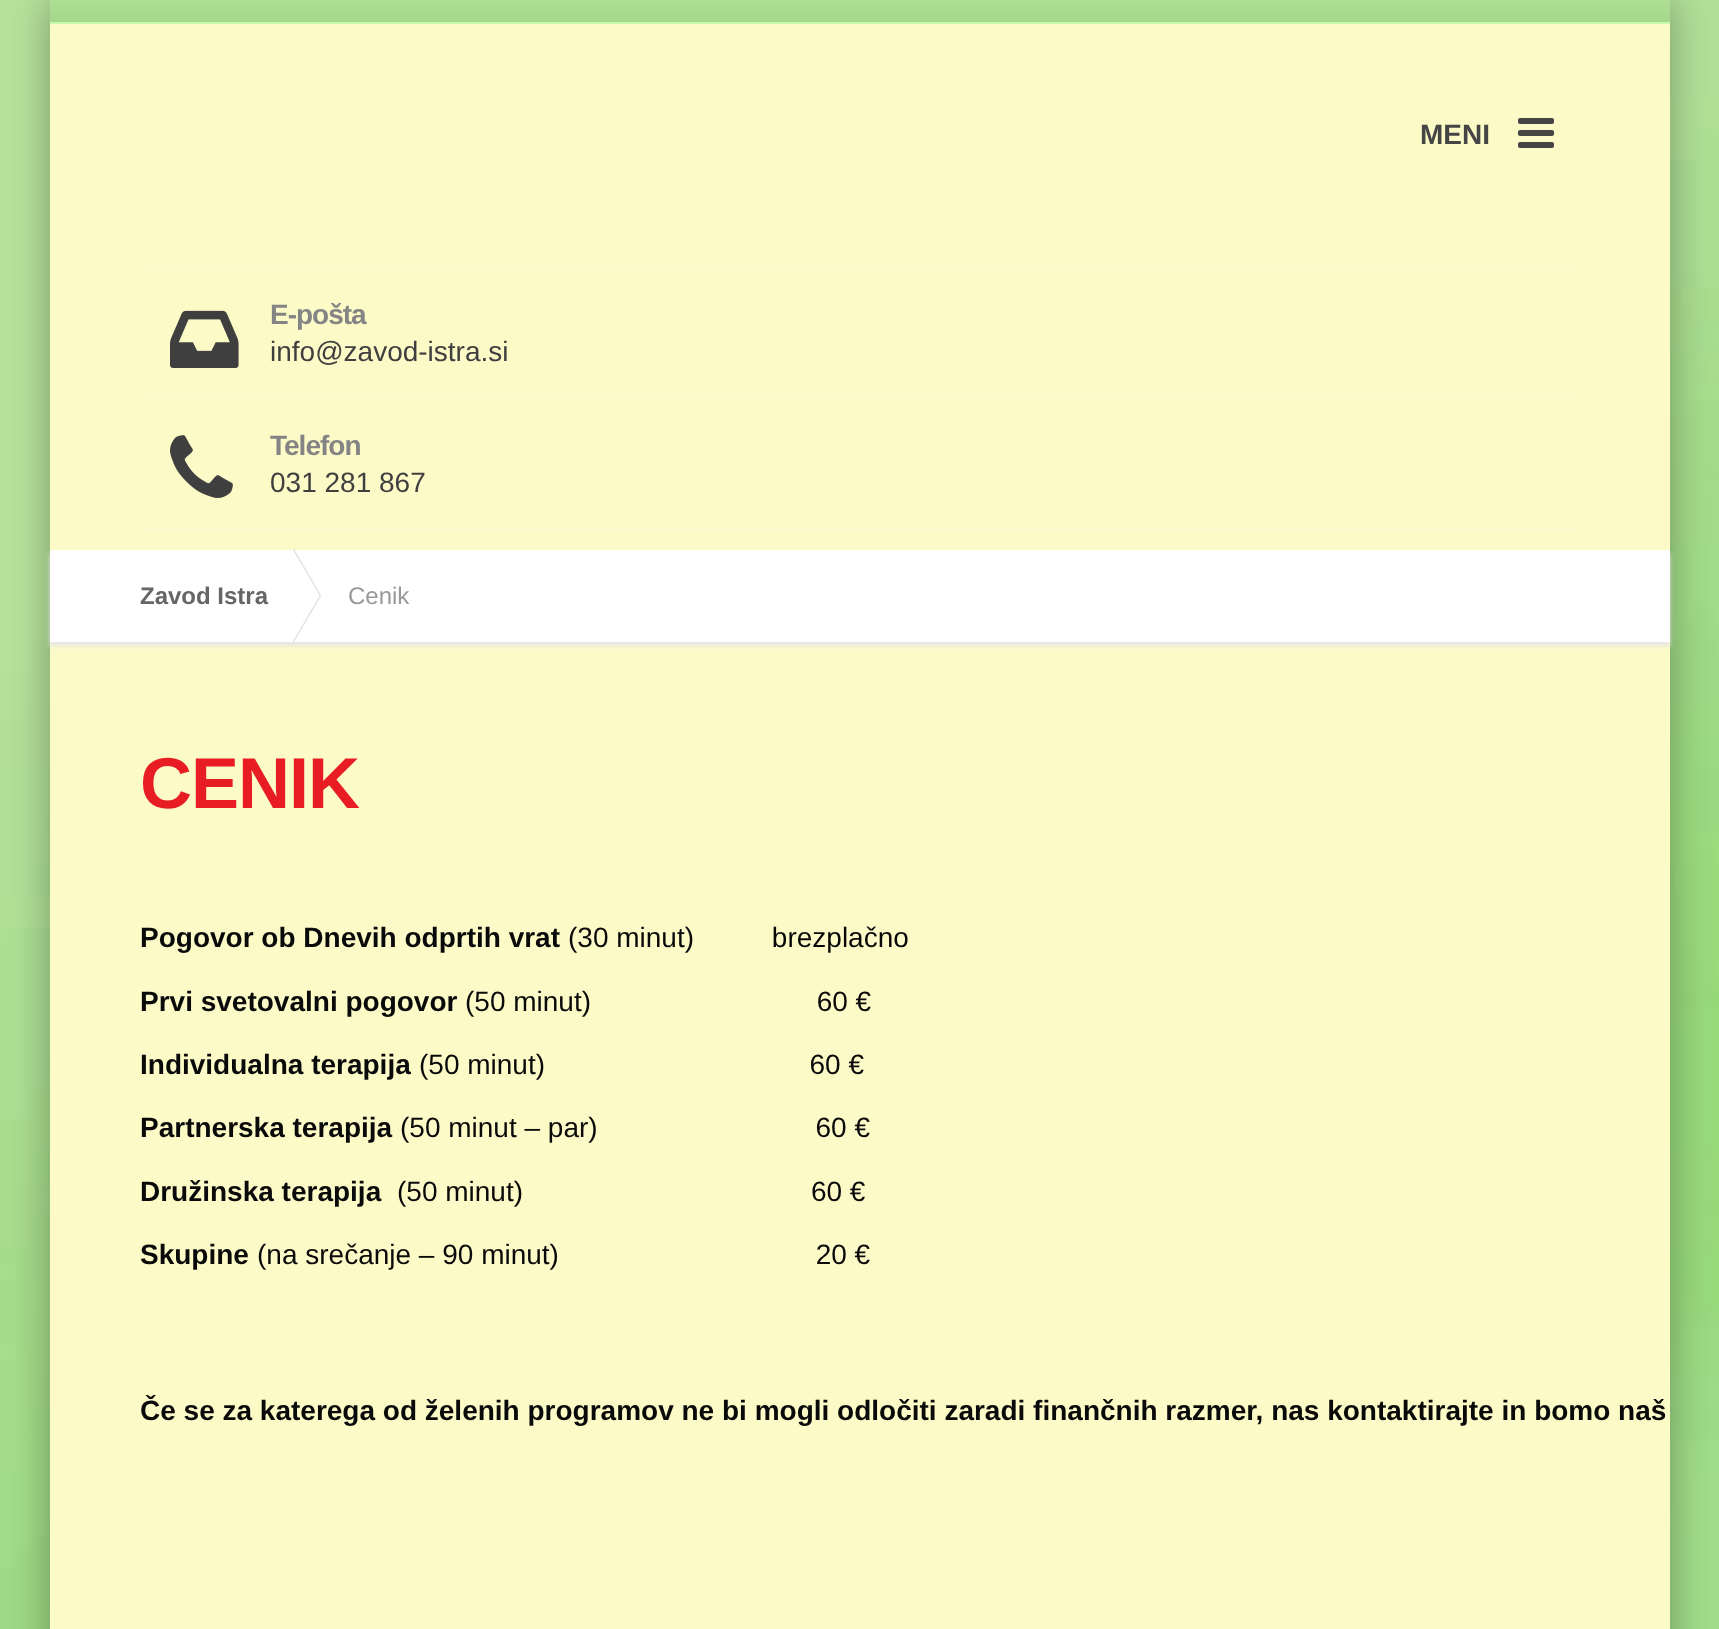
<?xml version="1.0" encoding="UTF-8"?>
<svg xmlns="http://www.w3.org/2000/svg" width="1719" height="1629">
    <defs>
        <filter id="blur1" x="-50%" y="-200%" width="200%" height="500%"><feGaussianBlur stdDeviation="20"/></filter>
        <linearGradient id="g1" gradientUnits="userSpaceOnUse" x1="860" y1="0" x2="860" y2="22"><stop offset="0" stop-color="#ACDF94"/><stop offset="1" stop-color="#A4D78C"/></linearGradient>
        <filter id="blur2" x="-50%" y="-200%" width="200%" height="500%"><feGaussianBlur stdDeviation="2"/></filter>
    </defs>
    <rect width="100%" height="100%" fill="#FFFFFF"/>
    <image x="0" y="0" width="1719" height="1629" href="img_01.png"/>
    <rect x="50" y="0" width="1620" height="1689" fill="#000000" fill-opacity="0.33" filter="url(#blur1)"/>
    <rect x="50" y="24" width="1620" height="1605" fill="#FCFAC7"/>
    <rect x="50" y="0" width="1620" height="22" fill="url(#g1)"/>
    <rect x="50" y="22" width="1620" height="2" fill="#C6F9AE"/>
    <text x="1420" y="144" font-family="Liberation Sans" font-size="28" font-weight="700" fill="#454545">MENI</text>
    <rect x="1518" y="118" width="36" height="6" rx="2" fill="#454545"/>
    <rect x="1518" y="130" width="36" height="6" rx="2" fill="#454545"/>
    <rect x="1518" y="142" width="36" height="6" rx="2" fill="#454545"/>
    <rect x="140" y="266" width="1440" height="2" fill="#FCFACD"/>
    <rect x="140" y="396" width="1440" height="2" fill="#FCFACD"/>
    <image x="170" y="310" width="69" height="58" href="img_02.png"/>
    <text x="270" y="324" font-family="Liberation Sans" font-size="28" font-weight="700" letter-spacing="-1" fill="#848484">E-pošta</text>
    <text x="270" y="361" font-family="Liberation Sans" font-size="28" fill="#3F3F3F">info@zavod-istra.si</text>
    <rect x="140" y="528" width="1440" height="2" fill="#FCFACD"/>
    <image x="170" y="435" width="63" height="63" href="img_03.png"/>
    <text x="270" y="455" font-family="Liberation Sans" font-size="28" font-weight="700" letter-spacing="-1" fill="#848484">Telefon</text>
    <text x="270" y="492" font-family="Liberation Sans" font-size="28" fill="#3F3F3F">031 281 867</text>
    <rect x="50" y="554" width="1620" height="92" fill="#E6E6E6" filter="url(#blur2)"/>
    <rect x="50" y="550" width="1620" height="92" fill="#FFFFFF"/>
    <text x="140" y="604" font-family="Liberation Sans" font-size="24" font-weight="700" fill="#666666">Zavod Istra</text>
    <path d="M 293 550 L 294 549 L 321 595 L 320 596 Z" fill="#E2E2E2"/>
    <path d="M 320 595 L 321 596 L 294 642 L 293 641 Z" fill="#E2E2E2"/>
    <text x="348" y="604" font-family="Liberation Sans" font-size="24" fill="#999999">Cenik</text>
    <text x="140" y="808" font-family="Liberation Sans" font-size="72" font-weight="700" letter-spacing="-1" fill="#E71D23">CENIK</text>
    <text x="140" y="947" font-family="Liberation Sans" font-size="28" font-weight="700" fill="#0A0A0A">Pogovor ob Dnevih odprtih vrat</text>
    <text x="568" y="947" font-family="Liberation Sans" font-size="28" fill="#0A0A0A" xml:space="preserve">(30 minut)          brezplačno</text>
    <text x="140" y="1011" font-family="Liberation Sans" font-size="28" font-weight="700" fill="#0A0A0A">Prvi svetovalni pogovor</text>
    <text x="465" y="1011" font-family="Liberation Sans" font-size="28" fill="#0A0A0A" xml:space="preserve">(50 minut)                             60 €</text>
    <text x="140" y="1074" font-family="Liberation Sans" font-size="28" font-weight="700" fill="#0A0A0A">Individualna terapija</text>
    <text x="419" y="1074" font-family="Liberation Sans" font-size="28" fill="#0A0A0A" xml:space="preserve">(50 minut)                                  60 €</text>
    <text x="140" y="1137" font-family="Liberation Sans" font-size="28" font-weight="700" fill="#0A0A0A">Partnerska terapija</text>
    <text x="400" y="1137" font-family="Liberation Sans" font-size="28" fill="#0A0A0A" xml:space="preserve">(50 minut – par)                            60 €</text>
    <text x="140" y="1201" font-family="Liberation Sans" font-size="28" font-weight="700" fill="#0A0A0A">Družinska terapija</text>
    <text x="397" y="1201" font-family="Liberation Sans" font-size="28" fill="#0A0A0A" xml:space="preserve">(50 minut)                                     60 €</text>
    <text x="140" y="1264" font-family="Liberation Sans" font-size="28" font-weight="700" fill="#0A0A0A">Skupine</text>
    <text x="257" y="1264" font-family="Liberation Sans" font-size="28" fill="#0A0A0A" xml:space="preserve">(na srečanje – 90 minut)                                 20 €</text>
    <text x="140" y="1420" font-family="Liberation Sans" font-size="28" font-weight="700" fill="#0A0A0A">Če se za katerega od želenih programov ne bi mogli odločiti zaradi finančnih razmer, nas kontaktirajte in bomo naš</text>
</svg>
